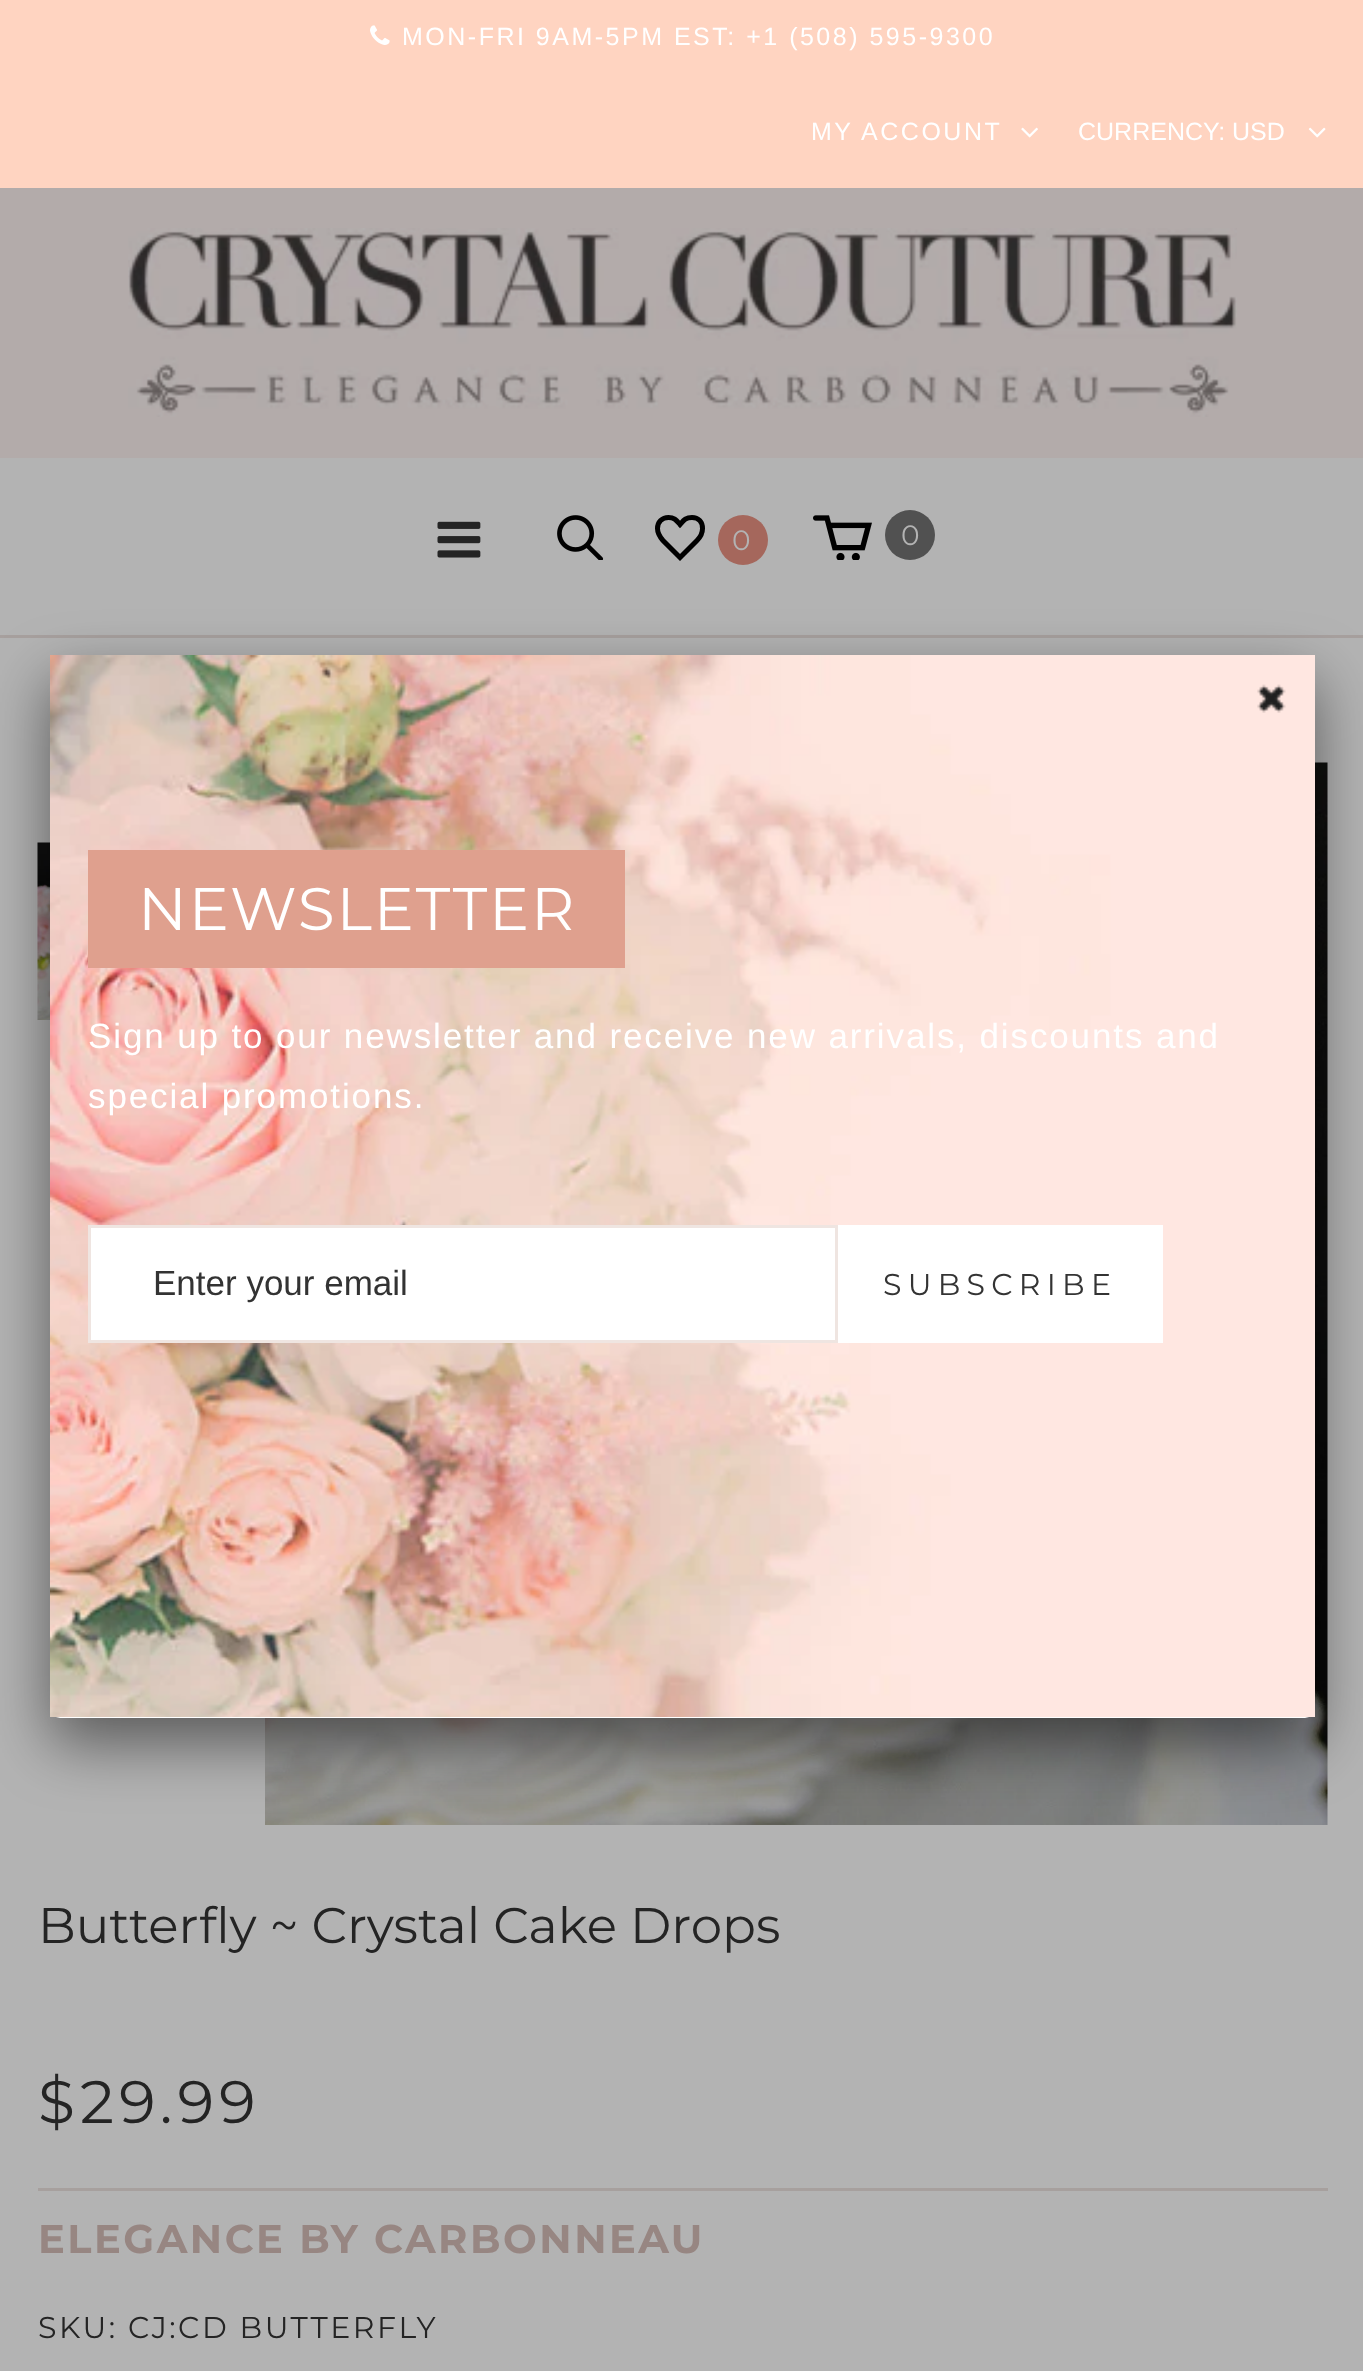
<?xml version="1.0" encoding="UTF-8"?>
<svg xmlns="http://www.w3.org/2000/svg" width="1363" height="2371">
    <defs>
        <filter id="blur1" x="-50%" y="-200%" width="200%" height="500%"><feGaussianBlur stdDeviation="31"/></filter>
    </defs>
    <rect width="100%" height="100%" fill="#B3B3B3"/>
    <rect x="0" y="0" width="1363" height="188" fill="#FFD4C1"/>
    <image x="370" y="25" width="20" height="20" href="img_01.png"/>
    <text x="402" y="45" font-family="Liberation Sans" font-size="25" letter-spacing="2.5" fill="#FFFFFF">MON-FRI 9AM-5PM EST: +1 (508) 595-9300</text>
    <text x="811" y="140" font-family="Liberation Sans" font-size="25" letter-spacing="2.5" fill="#FFFFFF">MY ACCOUNT</text>
    <image x="1021" y="127" width="17" height="11" href="img_02.png"/>
    <text x="1078" y="140" font-family="Liberation Sans" font-size="25" fill="#FFFFFF">CURRENCY:</text>
    <text x="1232" y="140" font-family="Liberation Sans" font-size="25" fill="#FFFFFF">USD</text>
    <image x="1308" y="127" width="18" height="11" href="img_03.png"/>
    <rect x="0" y="188" width="1363" height="270" fill="#B3ABAA"/>
    <image x="128" y="228" width="1109" height="189" href="img_04.png"/>
    <image x="437" y="521" width="44" height="37" href="img_05.png"/>
    <image x="557" y="515" width="47" height="45" href="img_06.png"/>
    <path d="M 663 540.5 C 659.5 536.5 657.5 532.5 657.5 528.5 C 657.5 522 662 517.5 668.5 517.5 C 674.5 517.5 676.5 520.5 680 524.5 C 683.5 520.5 685.5 517.5 692 517.5 C 698.5 517.5 702.5 522 702.5 528.5 C 702.5 532.5 701 536.5 697 540.5 L 680 557.5 Z" fill="none" stroke="#000000" stroke-width="5"/>
    <circle cx="743" cy="540" r="25" fill="#A5675C"/>
    <text x="732" y="550" font-family="Montserrat" font-size="28" fill="#B3B3B3">0</text>
    <image x="813" y="515" width="59" height="45" href="img_07.png"/>
    <circle cx="910" cy="535" r="25" fill="#515151"/>
    <text x="901" y="545" font-family="Montserrat" font-size="28" fill="#B3B3B3">0</text>
    <rect x="0" y="635" width="1363" height="3" fill="#A7A09E"/>
    <image x="37" y="842" width="13" height="178" href="img_08.png"/>
    <image x="265" y="762" width="1063" height="1063" href="img_09.png"/>
    <text x="38" y="1943" font-family="Montserrat" font-size="50" fill="#242424">Butterfly ~ Crystal Cake Drops</text>
    <text x="38" y="2123" font-family="Montserrat" font-size="60" letter-spacing="5" fill="#242424">$29.99</text>
    <rect x="38" y="2188" width="1290" height="3" fill="#A7A09E"/>
    <text x="38" y="2253" font-family="Montserrat" font-size="40" font-weight="700" letter-spacing="2.5" fill="#978682">ELEGANCE BY CARBONNEAU</text>
    <text x="38" y="2338" font-family="Montserrat" font-size="30" letter-spacing="2.5" fill="#242424">SKU: CJ:CD BUTTERFLY</text>
    <rect x="50" y="680" width="1265" height="1063" rx="10" fill="#000000" fill-opacity="0.5" filter="url(#blur1)"/>
    <rect x="50" y="655" width="1265" height="1063" rx="10" fill="#FFFFFF"/>
    <image x="50" y="655" width="1265" height="1062" href="img_11.png"/>
    <image x="1257" y="684" width="29" height="29" href="img_10.png"/>
    <rect x="88" y="850" width="537" height="118" fill="#DFA08E"/>
    <text x="138" y="930" font-family="Montserrat" font-size="60" letter-spacing="1.88" fill="#FFFFFF">NEWSLETTER</text>
    <text font-family="Liberation Sans" font-size="35" letter-spacing="1.88" fill="#FFFFFF">
        <tspan x="88" y="1048">Sign up to our newsletter and receive new arrivals, discounts and</tspan>
        <tspan x="88" y="1108">special promotions.</tspan>
    </text>
    <rect x="89.5" y="1226.5" width="747" height="115" fill="#FFFFFF" stroke="#EFE5E1" stroke-width="3"/>
    <text x="153" y="1295" font-family="Liberation Sans" font-size="35" fill="#333333">Enter your email</text>
    <rect x="838" y="1225" width="325" height="118" fill="#FFFFFF"/>
    <text x="883" y="1295" font-family="Montserrat" font-size="30" letter-spacing="6.25" fill="#333333">SUBSCRIBE</text>
</svg>
